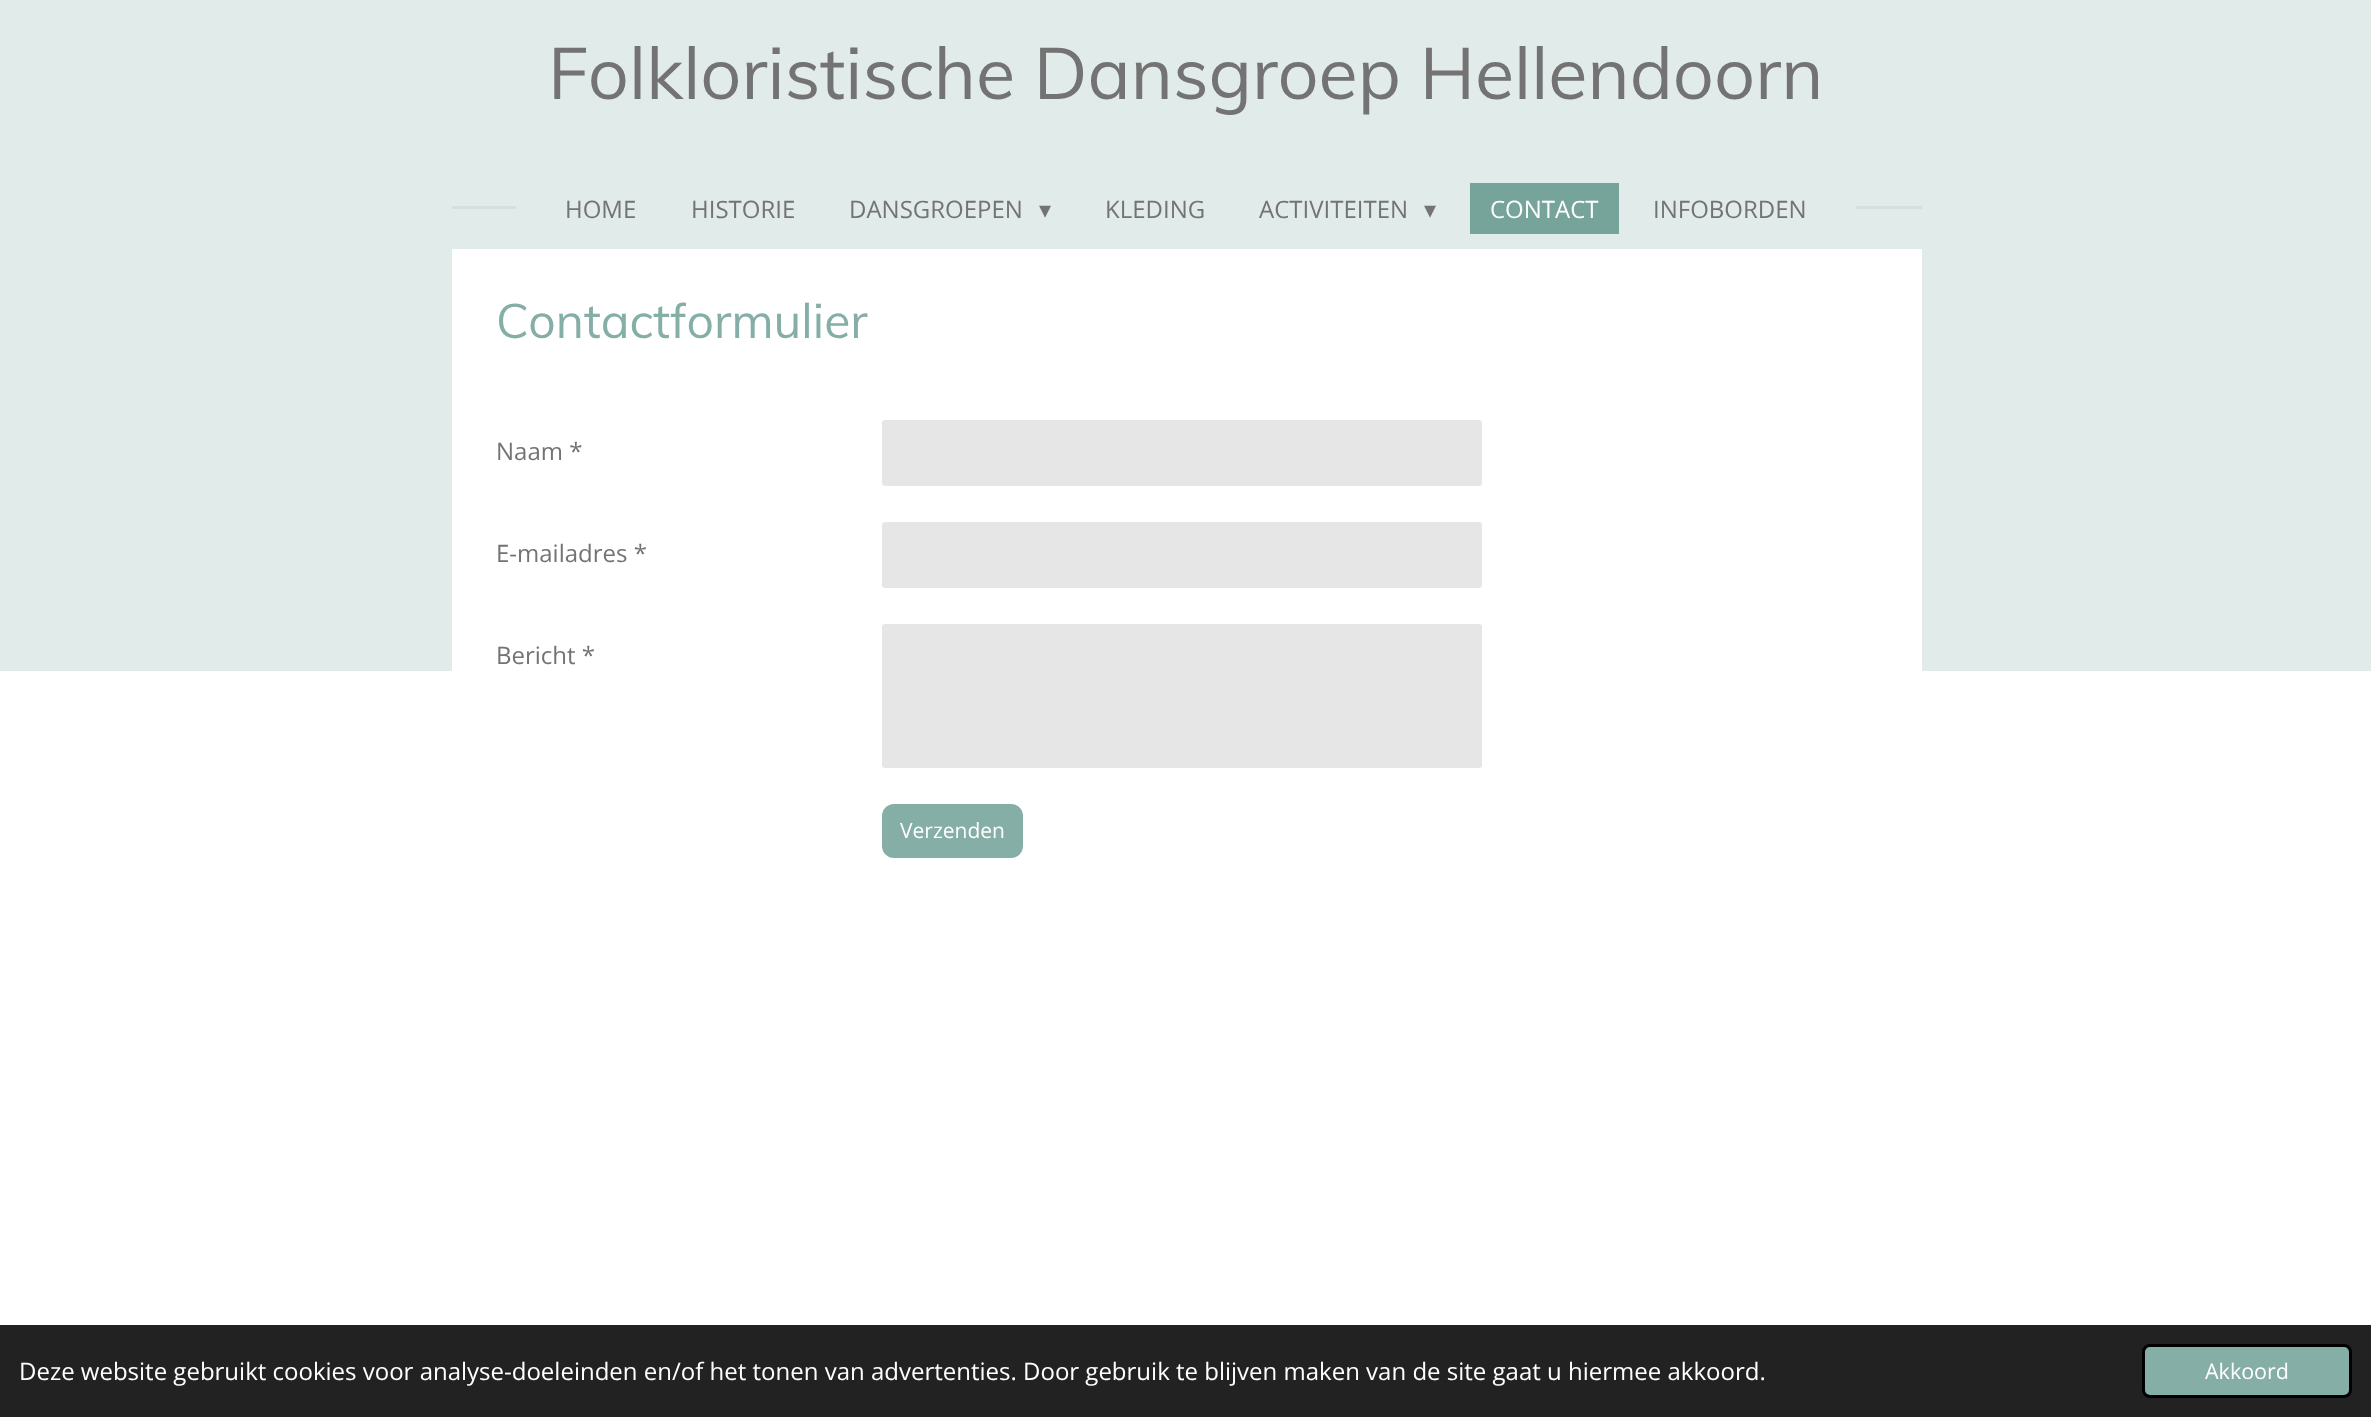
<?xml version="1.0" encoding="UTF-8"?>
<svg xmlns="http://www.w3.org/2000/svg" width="2371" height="1417">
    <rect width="100%" height="100%" fill="#FFFFFF"/>
    <rect x="0" y="0" width="2371" height="671" fill="#E1EBE9"/>
    <text x="548" y="99" font-family="Muli" font-size="72" fill="#737373">Folkloristische Dansgroep Hellendoorn</text>
    <rect x="452" y="206" width="64" height="3" fill="#D2E1DE"/>
    <text x="565" y="218" font-family="Open Sans" font-size="24" fill="#737373">HOME</text>
    <text x="691" y="218" font-family="Open Sans" font-size="24" fill="#737373">HISTORIE</text>
    <text x="849" y="218" font-family="Open Sans" font-size="24" fill="#737373">DANSGROEPEN</text>
    <text x="1039" y="218" font-family="DejaVu Sans" font-size="24" fill="#737373">▾</text>
    <text x="1105" y="218" font-family="Open Sans" font-size="24" fill="#737373">KLEDING</text>
    <text x="1259" y="218" font-family="Open Sans" font-size="24" fill="#737373">ACTIVITEITEN</text>
    <text x="1424" y="218" font-family="DejaVu Sans" font-size="24" fill="#737373">▾</text>
    <rect x="1470" y="183" width="149" height="51" fill="#76A49A"/>
    <text x="1490" y="218" font-family="Open Sans" font-size="24" fill="#FFFFFF">CONTACT</text>
    <text x="1653" y="218" font-family="Open Sans" font-size="24" fill="#737373">INFOBORDEN</text>
    <rect x="1856" y="206" width="66" height="3" fill="#D2E1DE"/>
    <rect x="452" y="249" width="1470" height="422" fill="#FFFFFF"/>
    <text x="496" y="338" font-family="Muli" font-size="48" fill="#85AEA6">Contactformulier</text>
    <text x="496" y="460" font-family="Open Sans" font-size="24" fill="#737373">Naam *</text>
    <rect x="882" y="420" width="600" height="66" rx="3" fill="#E6E6E6"/>
    <text x="496" y="562" font-family="Open Sans" font-size="24" fill="#737373">E-mailadres *</text>
    <rect x="882" y="522" width="600" height="66" rx="3" fill="#E6E6E6"/>
    <text x="496" y="664" font-family="Open Sans" font-size="24" fill="#737373">Bericht *</text>
    <rect x="882" y="624" width="600" height="144" rx="3" fill="#E6E6E6"/>
    <rect x="882" y="804" width="141" height="54" rx="12" fill="#85AEA6"/>
    <text x="900" y="838" font-family="Open Sans" font-size="21" fill="#FFFFFF">Verzenden</text>
    <rect x="0" y="1325" width="2371" height="92" fill="#222222"/>
    <text x="19" y="1380" font-family="Open Sans" font-size="24" fill="#FFFFFF">Deze website gebruikt cookies voor analyse-doeleinden en/of het tonen van advertenties. Door gebruik te blijven maken van de site gaat u hiermee akkoord.</text>
    <rect x="2143.5" y="1345.5" width="207" height="51" rx="6.5" fill="#85AEA6" stroke="#000000" stroke-width="3"/>
    <text x="2205" y="1379" font-family="Open Sans" font-size="21.5" fill="#FFFFFF">Akkoord</text>
</svg>
